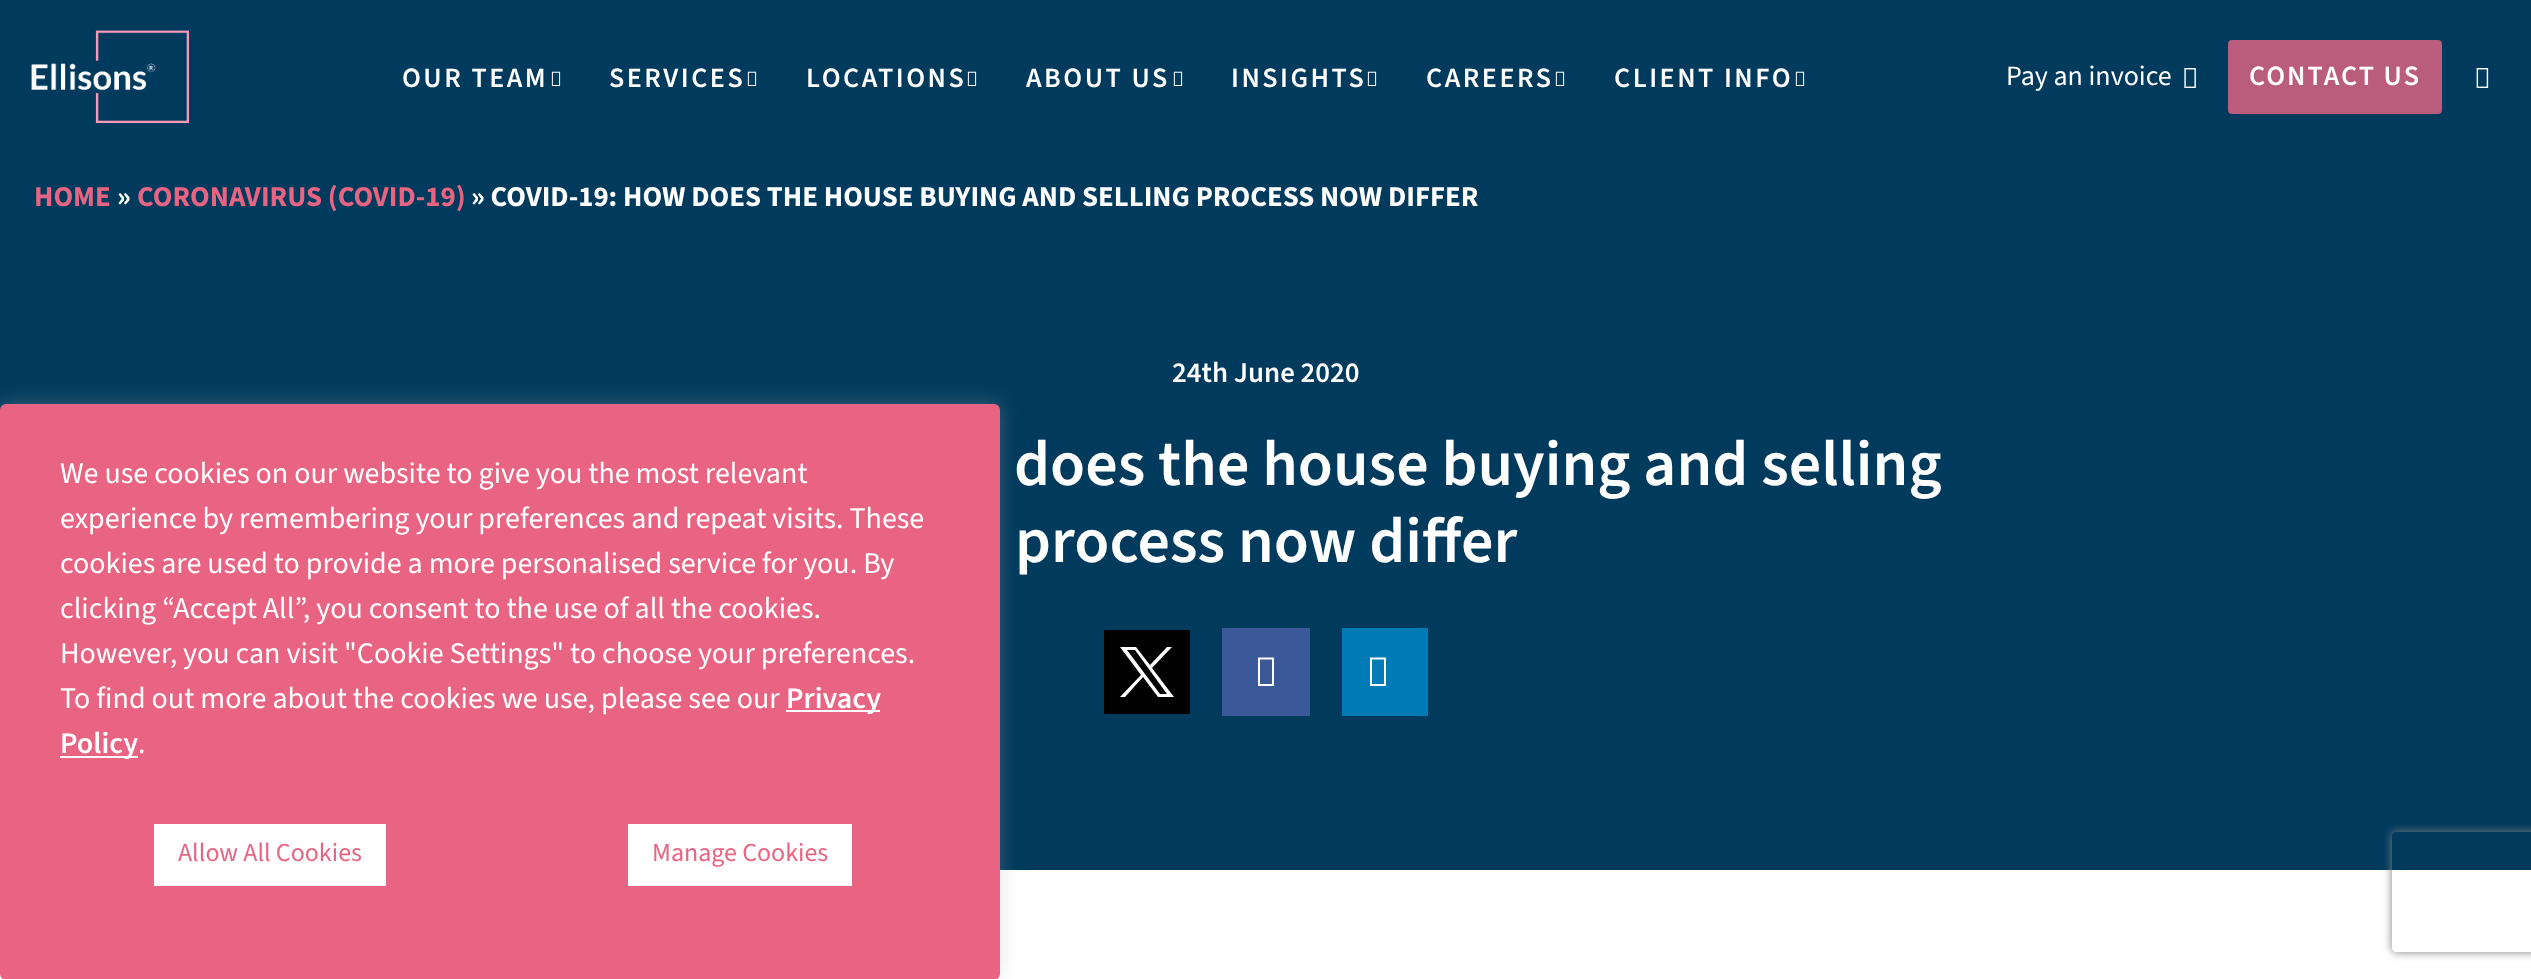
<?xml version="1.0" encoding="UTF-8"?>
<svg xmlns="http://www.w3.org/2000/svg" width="2531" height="979">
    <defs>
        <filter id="blur1" x="-50%" y="-200%" width="200%" height="500%"><feGaussianBlur stdDeviation="10"/></filter>
        <clipPath id="clip1"><path d="M 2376 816 H 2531 V 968 H 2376 Z M 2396 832 H 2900 C 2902 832 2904 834 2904 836 V 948 C 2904 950 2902 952 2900 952 H 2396 C 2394 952 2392 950 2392 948 V 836 C 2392 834 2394 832 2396 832 Z" clip-rule="evenodd"/></clipPath>
        <filter id="blur2" x="-50%" y="-200%" width="200%" height="500%"><feGaussianBlur stdDeviation="5"/></filter>
    </defs>
    <rect width="100%" height="100%" fill="#FFFFFF"/>
    <rect x="0" y="0" width="2531" height="870" fill="#003A5D"/>
    <image x="31" y="30" width="159" height="94" href="img_01.png"/>
    <text x="402" y="87" font-family="'Source Sans 3'" font-size="28" font-weight="200" letter-spacing="2.5" fill="#FFFFFF">OUR TEAM</text>
    <image x="551" y="71" width="10" height="15" href="img_02.png"/>
    <text x="609" y="87" font-family="'Source Sans 3'" font-size="28" font-weight="200" letter-spacing="2.5" fill="#FFFFFF">SERVICES</text>
    <image x="747" y="71" width="10" height="15" href="img_02.png"/>
    <text x="806" y="87" font-family="'Source Sans 3'" font-size="28" font-weight="200" letter-spacing="2.5" fill="#FFFFFF">LOCATIONS</text>
    <image x="967" y="71" width="10" height="15" href="img_02.png"/>
    <text x="1026" y="87" font-family="'Source Sans 3'" font-size="28" font-weight="200" letter-spacing="2.5" fill="#FFFFFF">ABOUT US</text>
    <image x="1173" y="71" width="10" height="15" href="img_02.png"/>
    <text x="1231" y="87" font-family="'Source Sans 3'" font-size="28" font-weight="200" letter-spacing="2.5" fill="#FFFFFF">INSIGHTS</text>
    <image x="1367" y="71" width="10" height="15" href="img_02.png"/>
    <text x="1426" y="87" font-family="'Source Sans 3'" font-size="28" font-weight="200" letter-spacing="2.5" fill="#FFFFFF">CAREERS</text>
    <image x="1555" y="71" width="10" height="15" href="img_02.png"/>
    <text x="1614" y="87" font-family="'Source Sans 3'" font-size="28" font-weight="200" letter-spacing="2.5" fill="#FFFFFF">CLIENT INFO</text>
    <image x="1795" y="71" width="10" height="15" href="img_02.png"/>
    <text x="2006" y="85" font-family="'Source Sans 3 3'" font-size="28" font-weight="200" fill="#FFFFFF">Pay an invoice</text>
    <image x="2184" y="68" width="12" height="20" href="img_03.png"/>
    <rect x="2228" y="40" width="214" height="74" rx="4" fill="#BA5C7B"/>
    <text x="2249" y="85" font-family="'Source Sans 3'" font-size="28" font-weight="200" letter-spacing="2" fill="#FFFFFF">CONTACT US</text>
    <image x="2476" y="68" width="13" height="20" href="img_04.png"/>
    <text x="34" y="206" font-family="'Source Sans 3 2'" font-size="28.8" font-weight="200" fill="#E96482">HOME</text>
    <text x="117" y="206" font-family="'Source Sans 3 2'" font-size="28.8" font-weight="200" fill="#FFFFFF">»</text>
    <text x="137" y="206" font-family="'Source Sans 3 2'" font-size="28.8" font-weight="200" fill="#E96482">CORONAVIRUS (COVID-19)</text>
    <text x="471" y="206" font-family="'Source Sans 3 2'" font-size="28.8" font-weight="200" fill="#FFFFFF">» COVID-19: HOW DOES THE HOUSE BUYING AND SELLING PROCESS NOW DIFFER</text>
    <text x="1172" y="382" font-family="'Source Sans 3'" font-size="28.8" font-weight="200" fill="#FFFFFF">24th June 2020</text>
    <text x="1014" y="485" font-family="'Source Sans 3'" font-size="64" font-weight="200" fill="#FFFFFF">does the house buying and selling</text>
    <text x="1015" y="562" font-family="'Source Sans 3'" font-size="64" font-weight="200" fill="#FFFFFF">process now differ</text>
    <rect x="1104" y="630" width="86" height="84" fill="#010101"/>
    <path d="M 1120 647 L 1141 675 L 1120 697 H 1125 L 1143 677 L 1158 697 H 1174 L 1152 668 L 1172 647 H 1167 L 1150 665 L 1136 647 Z M 1127 650 H 1135 L 1167 694 H 1160 Z" fill="#FFFFFF"/>
    <rect x="1222" y="628" width="88" height="88" fill="#3B5998"/>
    <path d="M 1258 686 V 657.5 H 1274 V 686 Z M 1260 684 H 1272 V 659.5 H 1260 Z" fill="#FFFFFF"/>
    <rect x="1342" y="628" width="86" height="88" fill="#007BB6"/>
    <path d="M 1370 686 V 657.5 H 1386 V 686 Z M 1372 684 H 1384 V 659.5 H 1372 Z" fill="#FFFFFF"/>
    <rect x="0" y="402" width="1000" height="576" rx="6" fill="#ACABAB" fill-opacity="0.3" filter="url(#blur1)"/>
    <rect x="0" y="404" width="1000" height="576" rx="6" fill="#E96482"/>
    <text font-family="'Source Sans 3 3'" font-size="30" font-weight="200" fill="#FFFFFF">
        <tspan x="60" y="483">We use cookies on our website to give you the most relevant</tspan>
        <tspan x="60" y="528">experience by remembering your preferences and repeat visits. These</tspan>
        <tspan x="60" y="573">cookies are used to provide a more personalised service for you. By</tspan>
        <tspan x="60" y="618">clicking “Accept All”, you consent to the use of all the cookies.</tspan>
        <tspan x="60" y="663">However, you can visit "Cookie Settings" to choose your preferences.</tspan>
        <tspan x="60" y="708">To find out more about the cookies we use, please see our</tspan>
    </text>
    <rect x="786" y="710" width="94" height="2" fill="#FFFFFF"/>
    <text x="786" y="708" font-family="'Source Sans 3'" font-size="30" font-weight="200" fill="#FFFFFF">Privacy</text>
    <rect x="60" y="756" width="78" height="2" fill="#FFFFFF"/>
    <text x="60" y="753" font-family="'Source Sans 3'" font-size="30" font-weight="200" fill="#FFFFFF">Policy</text>
    <text x="138" y="753" font-family="'Source Sans 3 3'" font-size="30" font-weight="200" fill="#FFFFFF">.</text>
    <rect x="154" y="824" width="232" height="62" fill="#FFFFFF"/>
    <text x="178" y="861" font-family="'Source Sans 3 3'" font-size="26" font-weight="200" fill="#E96482">Allow All Cookies</text>
    <rect x="628" y="824" width="224" height="62" fill="#FFFFFF"/>
    <text x="652" y="861" font-family="'Source Sans 3 3'" font-size="26" font-weight="200" fill="#E96482">Manage Cookies</text>
    <g clip-path="url(#clip1)">
        <rect x="2392" y="832" width="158" height="120" rx="4" fill="#808080" filter="url(#blur2)"/>
    </g>
</svg>
